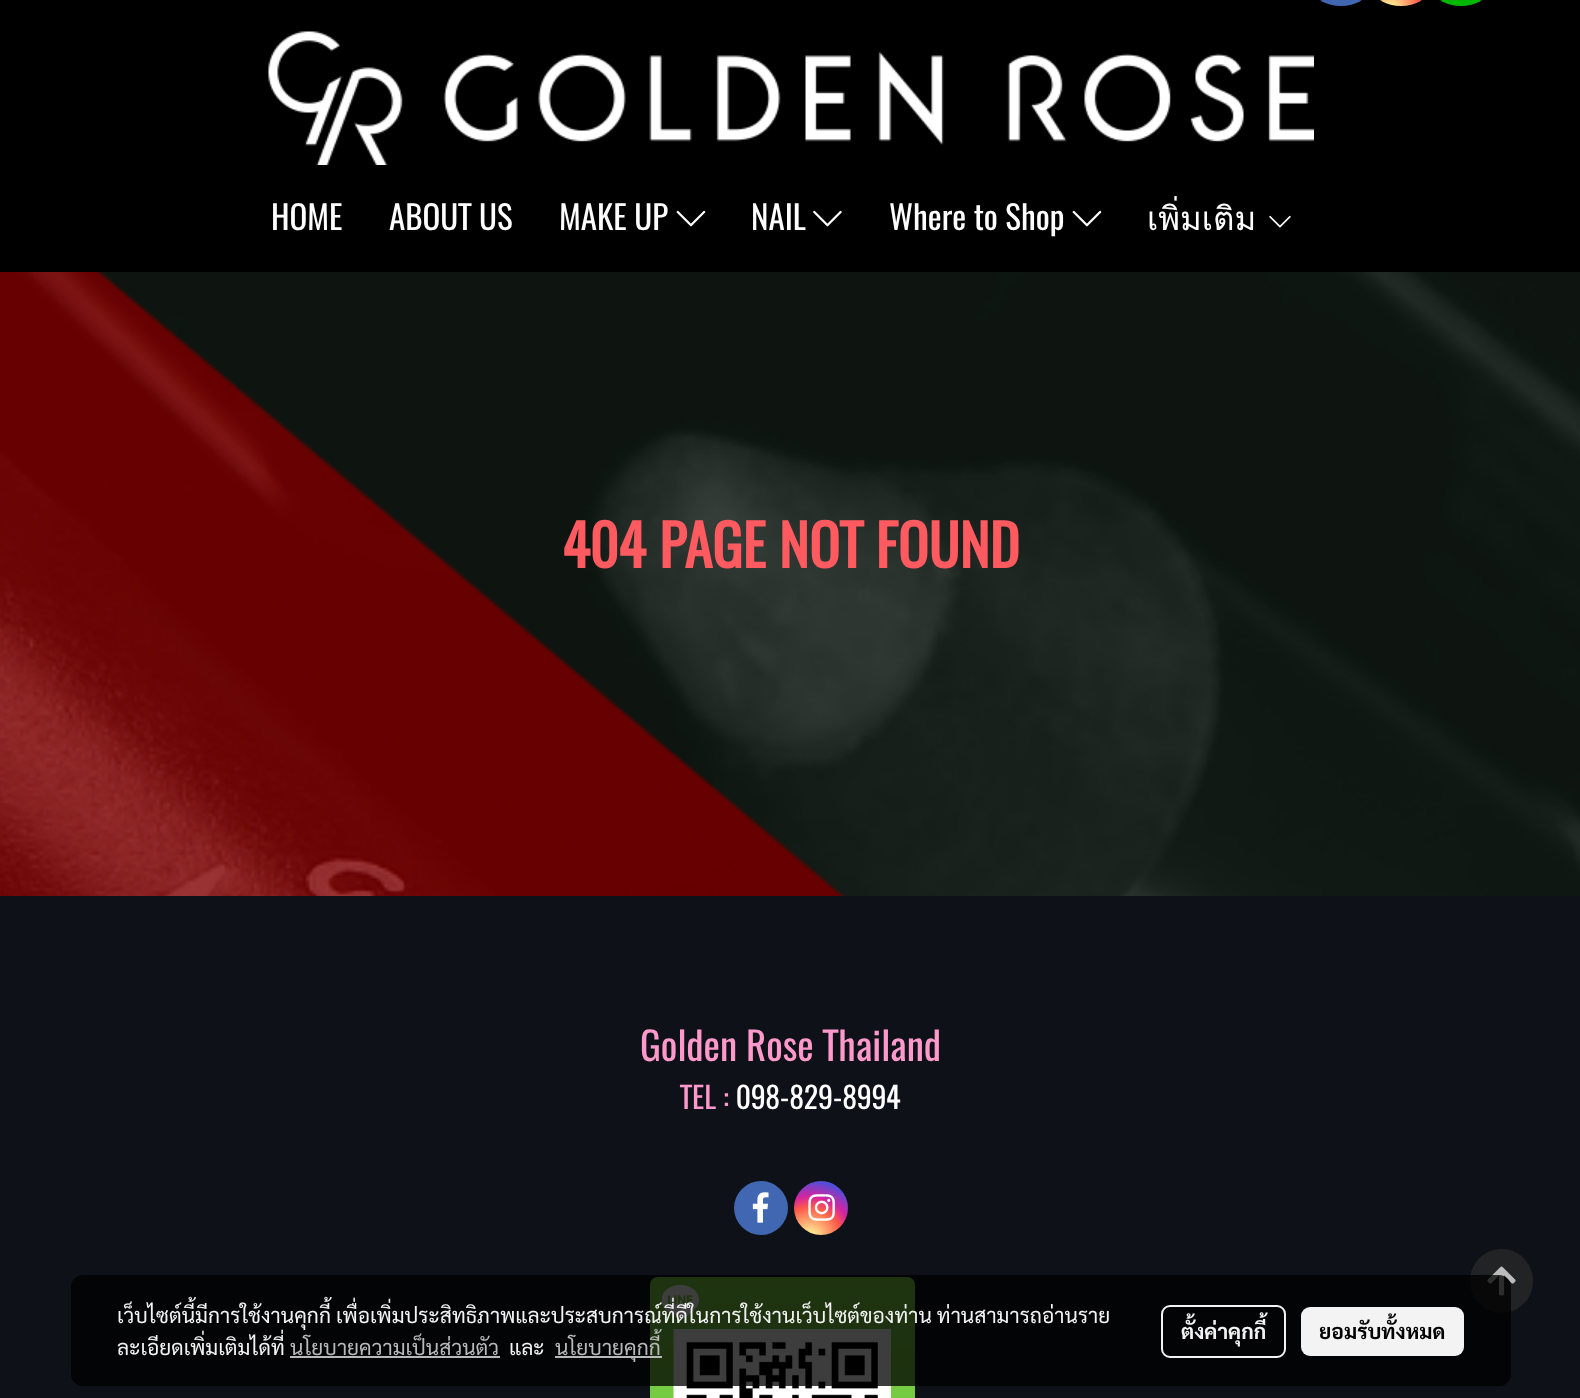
<?xml version="1.0" encoding="UTF-8"?>
<svg xmlns="http://www.w3.org/2000/svg" width="1580" height="1398">
    <defs>
        <radialGradient id="g1" gradientUnits="userSpaceOnUse" cx="1390" cy="10" r="69"><stop offset="0" stop-color="#FDF497"/><stop offset="0.05" stop-color="#FDF497"/><stop offset="0.45" stop-color="#FD5949"/><stop offset="0.6" stop-color="#D6249F"/><stop offset="0.9" stop-color="#285AEB"/></radialGradient>
        <radialGradient id="g2" gradientUnits="userSpaceOnUse" cx="810" cy="1238" r="69"><stop offset="0" stop-color="#FDF497"/><stop offset="0.05" stop-color="#FDF497"/><stop offset="0.45" stop-color="#FD5949"/><stop offset="0.6" stop-color="#D6249F"/><stop offset="0.9" stop-color="#285AEB"/></radialGradient>
        <linearGradient id="g3" gradientUnits="userSpaceOnUse" x1="782" y1="1277" x2="782" y2="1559"><stop offset="0" stop-color="#80D544"/><stop offset="1" stop-color="#65BC3E"/></linearGradient>
    </defs>
    <rect width="100%" height="100%" fill="#FFFFFF"/>
    <image x="0" y="272" width="1580" height="624" href="img_01.png"/>
    <rect x="0" y="0" width="1580" height="272" fill="#000000"/>
    <rect x="1314" y="-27" width="54" height="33" rx="27" fill="#4267B2"/>
    <rect x="1374" y="-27" width="54" height="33" rx="27" fill="url(#g1)"/>
    <rect x="1434" y="-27" width="54" height="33" rx="27" fill="#00B800"/>
    <image x="1460" y="5" width="2" height="1" href="img_02.png"/>
    <image x="268" y="31" width="1046" height="134" href="img_03.png"/>
    <text x="271" y="230" font-family="Oswald" font-size="33" fill="#FFFFFF">HOME</text>
    <text x="389" y="230" font-family="Oswald" font-size="33" fill="#FFFFFF">ABOUT US</text>
    <text x="559" y="230" font-family="Oswald" font-size="33" fill="#FFFFFF">MAKE UP</text>
    <image x="676" y="210" width="30" height="17" href="img_04.png"/>
    <text x="751" y="230" font-family="Oswald" font-size="33" fill="#FFFFFF">NAIL</text>
    <image x="813" y="210" width="29" height="17" href="img_05.png"/>
    <text x="889" y="230" font-family="Oswald" font-size="33" fill="#FFFFFF">Where to Shop</text>
    <image x="1072" y="210" width="30" height="17" href="img_04.png"/>
    <text x="1147" y="230" font-family="Loma" font-size="33" fill="#FFFFFF">เพิ่มเติม</text>
    <image x="1269" y="215" width="22" height="13" href="img_06.png"/>
    <text x="562" y="568" font-family="Oswald" font-size="57" font-weight="700" fill="#FF5A60">404 PAGE NOT FOUND</text>
    <rect x="0" y="896" width="1580" height="502" fill="#0E1118"/>
    <text x="640" y="1061" font-family="Oswald" font-size="39" fill="#FF99CC">Golden Rose Thailand</text>
    <text x="680" y="1109" font-family="Oswald" font-size="30" fill="#FF99CC">TEL :</text>
    <text x="736" y="1109" font-family="Oswald" font-size="30" fill="#FFFFFF">098-829-8994</text>
    <circle cx="761" cy="1208" r="27" fill="#4267B2"/>
    <image x="752" y="1192" width="17" height="31" href="img_07.png"/>
    <circle cx="821" cy="1208" r="27" fill="url(#g2)"/>
    <image x="808" y="1194" width="27" height="27" href="img_08.png"/>
    <rect x="650" y="1277" width="265" height="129" rx="8" fill="url(#g3)"/>
    <image x="662" y="1284" width="37" height="37" href="img_09.png"/>
    <image x="673" y="1329" width="218" height="69" href="img_10.png"/>
    <path d="M 1502 1249 C 1484 1249 1470 1263 1470 1281 C 1470 1299 1484 1313 1502 1313 C 1519 1313 1533 1299 1533 1281 C 1533 1263 1519 1249 1502 1249 Z" fill="#222325"/>
    <image x="1487" y="1266" width="29" height="30" href="img_11.png"/>
    <rect x="71" y="1275" width="1440" height="111" rx="12" fill="#000000" fill-opacity="0.76"/>
    <text font-family="Sarabun" font-size="21" fill="#F3F3F3">
        <tspan x="117" y="1323">เว็บไซต์นี้มีการใช้งานคุกกี้ เพื่อเพิ่มประสิทธิภาพและประสบการณ์ที่ดีในการใช้งานเว็บไซต์ของท่าน ท่านสามารถอ่านราย</tspan>
        <tspan x="117" y="1355">ละเอียดเพิ่มเติมได้ที่</tspan>
    </text>
    <text x="290" y="1355" font-family="Sarabun" font-size="21" fill="#B9B9BA">นโยบายความเป็นส่วนตัว</text>
    <rect x="290" y="1356" width="210" height="2" fill="#B9B9BA"/>
    <text x="509" y="1355" font-family="Sarabun" font-size="21" fill="#F3F3F3">และ</text>
    <rect x="555" y="1356" width="107" height="2" fill="#C2C2C2" fill-opacity="0.95"/>
    <text x="555" y="1355" font-family="Sarabun" font-size="21" fill="#B9B9BA">นโยบายคุกกี้</text>
    <rect x="1162" y="1306" width="123" height="51" rx="8" fill="none" stroke="#F3F3F3" stroke-width="2"/>
    <text x="1181" y="1339" font-family="Sarabun" font-size="21" font-weight="700" fill="#F3F3F3">ตั้งค่าคุกกี้</text>
    <rect x="1301" y="1307" width="163" height="49" rx="9" fill="#F3F3F3"/>
    <text x="1319" y="1339" font-family="Sarabun" font-size="21" font-weight="700" fill="#010101">ยอมรับทั้งหมด</text>
</svg>
